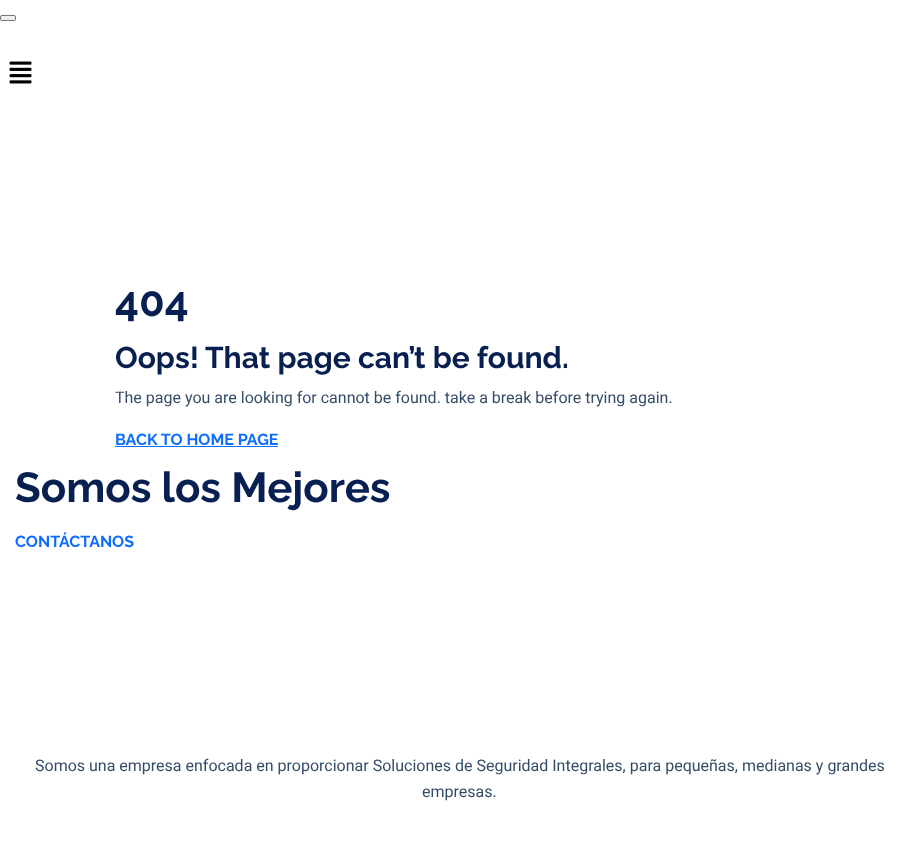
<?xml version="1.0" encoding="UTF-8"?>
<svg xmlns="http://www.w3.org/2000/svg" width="919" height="842">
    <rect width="100%" height="100%" fill="#FFFFFF"/>
    <rect x="0.5" y="15.5" width="15" height="5" rx="1.5" fill="#EFEFEF" stroke="#767676"/>
    <image x="9" y="61" width="23" height="23" href="img_01.png"/>
    <text x="115" y="316" font-family="Raleway" font-size="42" font-weight="700" fill="#081F51">404</text>
    <text x="115" y="368" font-family="Raleway" font-size="30" font-weight="700" fill="#081F51">Oops!</text>
    <text x="205" y="368" font-family="Raleway" font-size="30" font-weight="700" fill="#081F51">That page can’t be found.</text>
    <text x="115" y="403" font-family="Roboto" font-size="16" fill="#354C68">The page you are looking for cannot be found. take a break before trying again.</text>
    <text x="115" y="445" font-family="Raleway" font-size="16" font-weight="700" fill="#0D6EFD">BACK TO HOME PAGE</text>
    <rect x="115" y="446" width="163" height="1" fill="#0D6EFD"/>
    <text x="15" y="502" font-family="Raleway" font-size="42" font-weight="700" fill="#081F51">Somos los Mejores</text>
    <text x="15" y="547" font-family="Raleway" font-size="16" font-weight="700" fill="#0D6EFD">CONTÁCTANOS</text>
    <text x="35" y="771" font-family="Roboto" font-size="16" fill="#354C68">Somos una empresa enfocada en proporcionar Soluciones de Seguridad Integrales, para pequeñas, medianas y grandes</text>
    <text x="422" y="797" font-family="Roboto" font-size="16" fill="#354C68">empresas.</text>
</svg>
